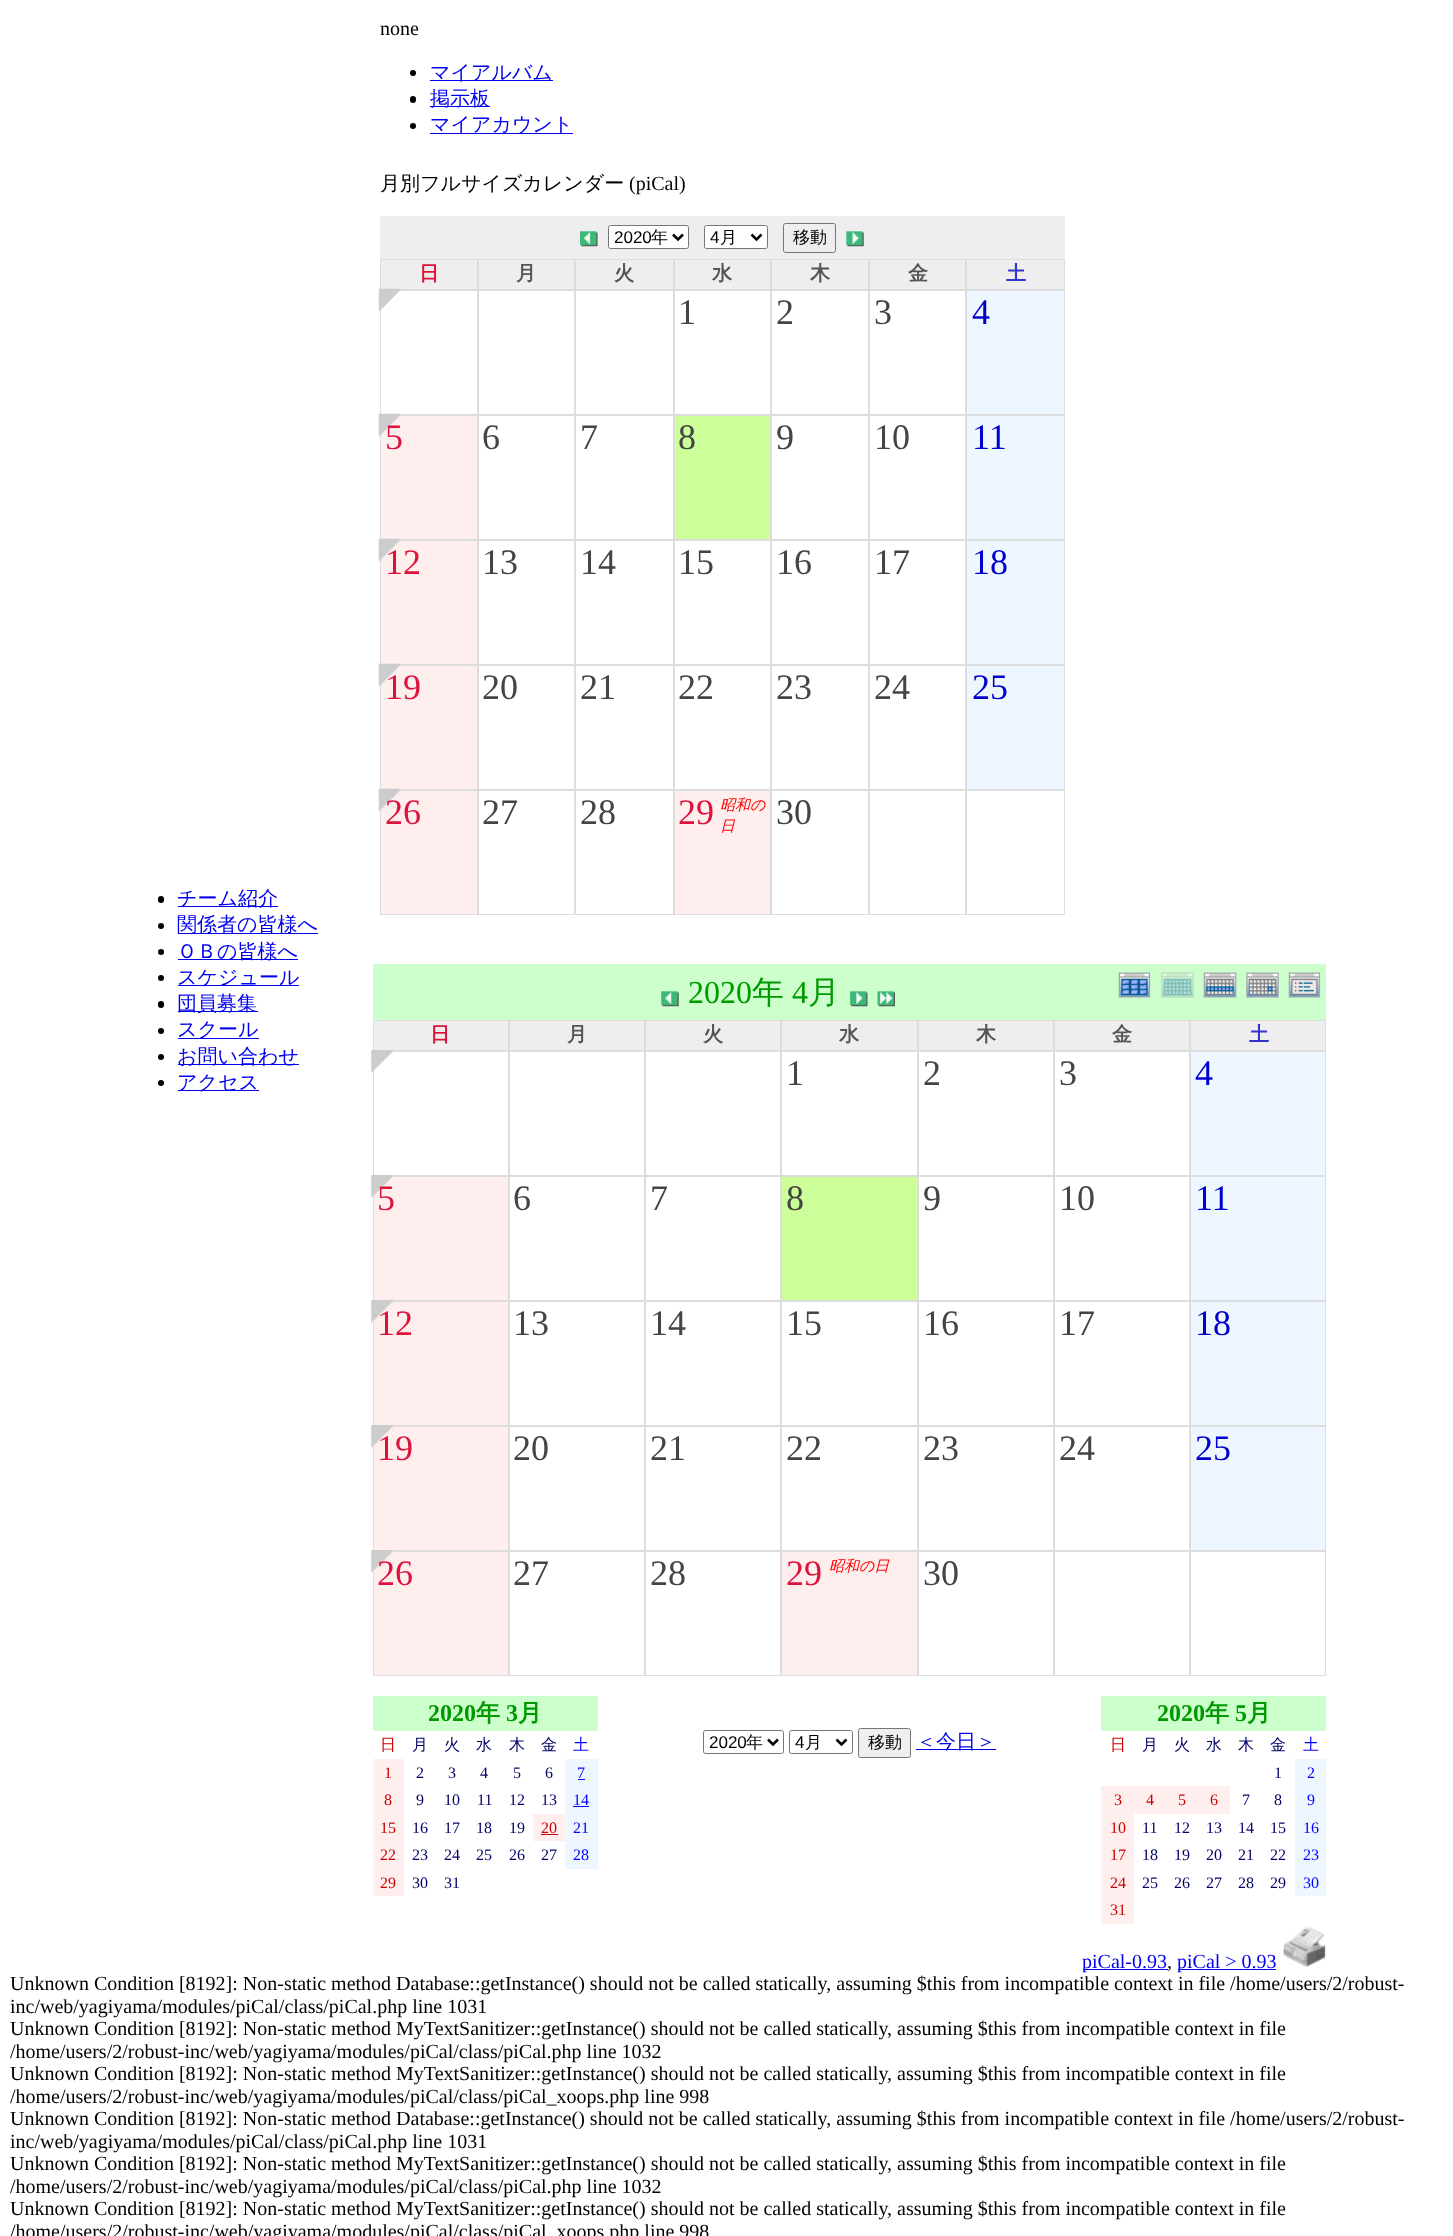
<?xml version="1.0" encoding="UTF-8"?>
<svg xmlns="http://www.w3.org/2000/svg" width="1453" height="2236">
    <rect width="100%" height="100%" fill="#FFFFFF"/>
    <rect x="158" y="896" width="6" height="7" rx="3" fill="#000000"/>
    <rect x="178" y="906" width="100" height="1" fill="#0000EE"/>
    <text x="177" y="905" font-family="WenQuanYi Zen Hei" font-size="20" font-weight="500" fill="#0000EE">チーム紹介</text>
    <circle cx="161" cy="926" r="3" fill="#000000"/>
    <rect x="178" y="933" width="140" height="1" fill="#0000EE"/>
    <text x="177" y="931" font-family="WenQuanYi Zen Hei" font-size="20" font-weight="500" fill="#0000EE">関係者の皆様へ</text>
    <circle cx="161" cy="952" r="3" fill="#000000"/>
    <rect x="178" y="959" width="120" height="1" fill="#0000EE"/>
    <text x="177" y="958" font-family="WenQuanYi Zen Hei" font-size="20" font-weight="500" fill="#0000EE">ＯＢの皆様へ</text>
    <circle cx="161" cy="978" r="3" fill="#000000"/>
    <rect x="178" y="985" width="121" height="1" fill="#0000EE"/>
    <text x="177" y="984" font-family="WenQuanYi Zen Hei" font-size="20" font-weight="500" fill="#0000EE">スケジュール</text>
    <rect x="158" y="1001" width="6" height="7" rx="3" fill="#000000"/>
    <rect x="178" y="1011" width="80" height="1" fill="#0000EE"/>
    <text x="177" y="1010" font-family="WenQuanYi Zen Hei" font-size="20" font-weight="500" fill="#0000EE">団員募集</text>
    <circle cx="161" cy="1031" r="3" fill="#000000"/>
    <rect x="178" y="1038" width="81" height="1" fill="#0000EE"/>
    <text x="177" y="1036" font-family="WenQuanYi Zen Hei" font-size="20" font-weight="500" fill="#0000EE">スクール</text>
    <circle cx="161" cy="1057" r="3" fill="#000000"/>
    <rect x="178" y="1064" width="121" height="1" fill="#0000EE"/>
    <text x="177" y="1063" font-family="WenQuanYi Zen Hei" font-size="20" font-weight="500" fill="#0000EE">お問い合わせ</text>
    <circle cx="161" cy="1083" r="3" fill="#000000"/>
    <rect x="178" y="1090" width="81" height="1" fill="#0000EE"/>
    <text x="177" y="1089" font-family="WenQuanYi Zen Hei" font-size="20" font-weight="500" fill="#0000EE">アクセス</text>
    <text x="380" y="35" font-family="Liberation Serif" font-size="20" fill="#000000">none</text>
    <circle cx="413" cy="73" r="3" fill="#000000"/>
    <rect x="430" y="80" width="123" height="1" fill="#0000EE"/>
    <text x="430" y="79" font-family="WenQuanYi Zen Hei" font-size="20" font-weight="500" fill="#0000EE">マイアルバム</text>
    <rect x="410" y="96" width="6" height="7" rx="3" fill="#000000"/>
    <rect x="430" y="106" width="60" height="1" fill="#0000EE"/>
    <text x="430" y="105" font-family="WenQuanYi Zen Hei" font-size="20" font-weight="500" fill="#0000EE">掲示板</text>
    <circle cx="413" cy="126" r="3" fill="#000000"/>
    <rect x="430" y="133" width="143" height="1" fill="#0000EE"/>
    <text x="430" y="131" font-family="WenQuanYi Zen Hei" font-size="20" font-weight="500" fill="#0000EE">マイアカウント</text>
    <text x="380" y="190" font-family="WenQuanYi Zen Hei" font-size="20" font-weight="500" fill="#000000">月別フルサイズカレンダー</text>
    <text x="629" y="190" font-family="Liberation Serif" font-size="20" fill="#000000">(piCal)</text>
    <rect x="380" y="216" width="685" height="43" fill="#EEEEEE"/>
    <image x="580" y="231" width="18" height="16" href="img_01.png"/>
    <rect x="608.5" y="225.5" width="80" height="23" rx="2" fill="#FFFFFF" stroke="#767676"/>
    <path d="M 673 234.5 L 678 239.5 L 683 234.5" fill="none" stroke="#000000" stroke-width="2.5"/>
    <text x="614" y="243" font-family="Liberation Sans" font-size="17" fill="#000000">2020</text>
    <text x="651" y="243" font-family="WenQuanYi Zen Hei" font-size="17" font-weight="500" fill="#000000">年</text>
    <rect x="704.5" y="225.5" width="63" height="23" rx="2" fill="#FFFFFF" stroke="#767676"/>
    <path d="M 751.5 234.5 L 756.5 239.5 L 761.5 234.5" fill="none" stroke="#000000" stroke-width="2.5"/>
    <text x="710" y="243" font-family="Liberation Sans" font-size="17" fill="#000000">4</text>
    <text x="720" y="243" font-family="WenQuanYi Zen Hei" font-size="17" font-weight="500" fill="#000000">月</text>
    <rect x="783.5" y="223.5" width="52" height="29" rx="2" fill="none" stroke="#767676"/>
    <text x="793" y="243" font-family="WenQuanYi Zen Hei" font-size="17" font-weight="500" fill="#000000">移動</text>
    <image x="846" y="231" width="18" height="16" href="img_02.png"/>
    <rect x="380.5" y="259.5" width="97" height="30" fill="#EEEEEE" stroke="#DDDDDD"/>
    <text x="419" y="280" font-family="WenQuanYi Zen Hei" font-size="20" font-weight="700" fill="#DC143C">日</text>
    <rect x="478.5" y="259.5" width="96" height="30" fill="#EEEEEE" stroke="#DDDDDD"/>
    <text x="516" y="280" font-family="WenQuanYi Zen Hei" font-size="20" font-weight="700" fill="#555555">月</text>
    <rect x="575.5" y="259.5" width="98" height="30" fill="#EEEEEE" stroke="#DDDDDD"/>
    <text x="614" y="280" font-family="WenQuanYi Zen Hei" font-size="20" font-weight="700" fill="#555555">火</text>
    <rect x="674.5" y="259.5" width="96" height="30" fill="#EEEEEE" stroke="#DDDDDD"/>
    <text x="712" y="280" font-family="WenQuanYi Zen Hei" font-size="20" font-weight="700" fill="#555555">水</text>
    <rect x="771.5" y="259.5" width="97" height="30" fill="#EEEEEE" stroke="#DDDDDD"/>
    <text x="810" y="280" font-family="WenQuanYi Zen Hei" font-size="20" font-weight="700" fill="#555555">木</text>
    <rect x="869.5" y="259.5" width="96" height="30" fill="#EEEEEE" stroke="#DDDDDD"/>
    <text x="908" y="280" font-family="WenQuanYi Zen Hei" font-size="20" font-weight="700" fill="#555555">金</text>
    <rect x="966.5" y="259.5" width="98" height="30" fill="#EEEEEE" stroke="#DDDDDD"/>
    <text x="1006" y="280" font-family="WenQuanYi Zen Hei" font-size="20" font-weight="700" fill="#3333CD">土</text>
    <rect x="380.5" y="290.5" width="97" height="124" fill="none" stroke="#DDDDDD"/>
    <image x="378" y="288" width="23" height="24" href="img_03.png"/>
    <rect x="478.5" y="290.5" width="96" height="124" fill="none" stroke="#DDDDDD"/>
    <rect x="575.5" y="290.5" width="98" height="124" fill="none" stroke="#DDDDDD"/>
    <rect x="674.5" y="290.5" width="96" height="124" fill="none" stroke="#DDDDDD"/>
    <text x="678" y="324" font-family="Liberation Serif" font-size="36" fill="#444444">1</text>
    <rect x="771.5" y="290.5" width="97" height="124" fill="none" stroke="#DDDDDD"/>
    <text x="776" y="324" font-family="Liberation Serif" font-size="36" fill="#444444">2</text>
    <rect x="869.5" y="290.5" width="96" height="124" fill="none" stroke="#DDDDDD"/>
    <text x="874" y="324" font-family="Liberation Serif" font-size="36" fill="#444444">3</text>
    <rect x="966.5" y="290.5" width="98" height="124" fill="#EEF7FF" stroke="#DDDDDD"/>
    <text x="972" y="324" font-family="Liberation Serif" font-size="36" fill="#0000CD">4</text>
    <rect x="380.5" y="415.5" width="97" height="124" fill="#FFEEEE" stroke="#DDDDDD"/>
    <image x="378" y="413" width="23" height="24" href="img_04.png"/>
    <text x="385" y="449" font-family="Liberation Serif" font-size="36" fill="#DC143C">5</text>
    <rect x="478.5" y="415.5" width="96" height="124" fill="none" stroke="#DDDDDD"/>
    <text x="482" y="449" font-family="Liberation Serif" font-size="36" fill="#444444">6</text>
    <rect x="575.5" y="415.5" width="98" height="124" fill="none" stroke="#DDDDDD"/>
    <text x="580" y="449" font-family="Liberation Serif" font-size="36" fill="#444444">7</text>
    <rect x="674.5" y="415.5" width="96" height="124" fill="#CCFF99" stroke="#DDDDDD"/>
    <text x="678" y="449" font-family="Liberation Serif" font-size="36" fill="#444444">8</text>
    <rect x="771.5" y="415.5" width="97" height="124" fill="none" stroke="#DDDDDD"/>
    <text x="776" y="449" font-family="Liberation Serif" font-size="36" fill="#444444">9</text>
    <rect x="869.5" y="415.5" width="96" height="124" fill="none" stroke="#DDDDDD"/>
    <text x="874" y="449" font-family="Liberation Serif" font-size="36" fill="#444444">10</text>
    <rect x="966.5" y="415.5" width="98" height="124" fill="#EEF7FF" stroke="#DDDDDD"/>
    <text x="972" y="449" font-family="Liberation Serif" font-size="36" fill="#0000CD">11</text>
    <rect x="380.5" y="540.5" width="97" height="124" fill="#FFEEEE" stroke="#DDDDDD"/>
    <image x="378" y="538" width="23" height="24" href="img_05.png"/>
    <text x="385" y="574" font-family="Liberation Serif" font-size="36" fill="#DC143C">12</text>
    <rect x="478.5" y="540.5" width="96" height="124" fill="none" stroke="#DDDDDD"/>
    <text x="482" y="574" font-family="Liberation Serif" font-size="36" fill="#444444">13</text>
    <rect x="575.5" y="540.5" width="98" height="124" fill="none" stroke="#DDDDDD"/>
    <text x="580" y="574" font-family="Liberation Serif" font-size="36" fill="#444444">14</text>
    <rect x="674.5" y="540.5" width="96" height="124" fill="none" stroke="#DDDDDD"/>
    <text x="678" y="574" font-family="Liberation Serif" font-size="36" fill="#444444">15</text>
    <rect x="771.5" y="540.5" width="97" height="124" fill="none" stroke="#DDDDDD"/>
    <text x="776" y="574" font-family="Liberation Serif" font-size="36" fill="#444444">16</text>
    <rect x="869.5" y="540.5" width="96" height="124" fill="none" stroke="#DDDDDD"/>
    <text x="874" y="574" font-family="Liberation Serif" font-size="36" fill="#444444">17</text>
    <rect x="966.5" y="540.5" width="98" height="124" fill="#EEF7FF" stroke="#DDDDDD"/>
    <text x="972" y="574" font-family="Liberation Serif" font-size="36" fill="#0000CD">18</text>
    <rect x="380.5" y="665.5" width="97" height="124" fill="#FFEEEE" stroke="#DDDDDD"/>
    <image x="378" y="663" width="23" height="24" href="img_05.png"/>
    <text x="385" y="699" font-family="Liberation Serif" font-size="36" fill="#DC143C">19</text>
    <rect x="478.5" y="665.5" width="96" height="124" fill="none" stroke="#DDDDDD"/>
    <text x="482" y="699" font-family="Liberation Serif" font-size="36" fill="#444444">20</text>
    <rect x="575.5" y="665.5" width="98" height="124" fill="none" stroke="#DDDDDD"/>
    <text x="580" y="699" font-family="Liberation Serif" font-size="36" fill="#444444">21</text>
    <rect x="674.5" y="665.5" width="96" height="124" fill="none" stroke="#DDDDDD"/>
    <text x="678" y="699" font-family="Liberation Serif" font-size="36" fill="#444444">22</text>
    <rect x="771.5" y="665.5" width="97" height="124" fill="none" stroke="#DDDDDD"/>
    <text x="776" y="699" font-family="Liberation Serif" font-size="36" fill="#444444">23</text>
    <rect x="869.5" y="665.5" width="96" height="124" fill="none" stroke="#DDDDDD"/>
    <text x="874" y="699" font-family="Liberation Serif" font-size="36" fill="#444444">24</text>
    <rect x="966.5" y="665.5" width="98" height="124" fill="#EEF7FF" stroke="#DDDDDD"/>
    <text x="972" y="699" font-family="Liberation Serif" font-size="36" fill="#0000CD">25</text>
    <rect x="380.5" y="790.5" width="97" height="124" fill="#FFEEEE" stroke="#DDDDDD"/>
    <image x="378" y="788" width="23" height="24" href="img_05.png"/>
    <text x="385" y="824" font-family="Liberation Serif" font-size="36" fill="#DC143C">26</text>
    <rect x="478.5" y="790.5" width="96" height="124" fill="none" stroke="#DDDDDD"/>
    <text x="482" y="824" font-family="Liberation Serif" font-size="36" fill="#444444">27</text>
    <rect x="575.5" y="790.5" width="98" height="124" fill="none" stroke="#DDDDDD"/>
    <text x="580" y="824" font-family="Liberation Serif" font-size="36" fill="#444444">28</text>
    <rect x="674.5" y="790.5" width="96" height="124" fill="#FFEEEE" stroke="#DDDDDD"/>
    <text x="678" y="824" font-family="Liberation Serif" font-size="36" fill="#DC143C">29</text>
    <text font-family="WenQuanYi Zen Hei" font-size="15" font-weight="500" font-style="italic" fill="#FF0000">
        <tspan x="720" y="810">昭和の</tspan>
        <tspan x="720" y="831">日</tspan>
    </text>
    <rect x="771.5" y="790.5" width="97" height="124" fill="none" stroke="#DDDDDD"/>
    <text x="776" y="824" font-family="Liberation Serif" font-size="36" fill="#444444">30</text>
    <rect x="869.5" y="790.5" width="96" height="124" fill="none" stroke="#DDDDDD"/>
    <rect x="966.5" y="790.5" width="98" height="124" fill="none" stroke="#DDDDDD"/>
    <rect x="373" y="964" width="953" height="56" fill="#CCFFCC"/>
    <image x="661" y="991" width="18" height="16" href="img_06.png"/>
    <text x="688" y="1003" font-family="Liberation Serif" font-size="32" fill="#009900">2020</text>
    <text x="752" y="1003" font-family="WenQuanYi Zen Hei" font-size="32" font-weight="500" fill="#009900">年</text>
    <text x="792" y="1003" font-family="Liberation Serif" font-size="32" fill="#009900">4</text>
    <text x="808" y="1003" font-family="WenQuanYi Zen Hei" font-size="32" font-weight="500" fill="#009900">月</text>
    <image x="849" y="991" width="19" height="16" href="img_07.png"/>
    <image x="877" y="991" width="18" height="16" href="img_08.png"/>
    <image x="1118" y="972" width="33" height="26" href="img_09.png"/>
    <image x="1161" y="972" width="33" height="26" href="img_10.png"/>
    <image x="1203" y="972" width="34" height="26" href="img_11.png"/>
    <image x="1246" y="972" width="33" height="26" href="img_12.png"/>
    <image x="1288" y="972" width="33" height="26" href="img_13.png"/>
    <rect x="373.5" y="1020.5" width="135" height="30" fill="#EEEEEE" stroke="#DDDDDD"/>
    <text x="430" y="1041" font-family="WenQuanYi Zen Hei" font-size="20" font-weight="700" fill="#DC143C">日</text>
    <rect x="509.5" y="1020.5" width="135" height="30" fill="#EEEEEE" stroke="#DDDDDD"/>
    <text x="567" y="1041" font-family="WenQuanYi Zen Hei" font-size="20" font-weight="700" fill="#555555">月</text>
    <rect x="645.5" y="1020.5" width="135" height="30" fill="#EEEEEE" stroke="#DDDDDD"/>
    <text x="703" y="1041" font-family="WenQuanYi Zen Hei" font-size="20" font-weight="700" fill="#555555">火</text>
    <rect x="781.5" y="1020.5" width="136" height="30" fill="#EEEEEE" stroke="#DDDDDD"/>
    <text x="839" y="1041" font-family="WenQuanYi Zen Hei" font-size="20" font-weight="700" fill="#555555">水</text>
    <rect x="918.5" y="1020.5" width="135" height="30" fill="#EEEEEE" stroke="#DDDDDD"/>
    <text x="976" y="1041" font-family="WenQuanYi Zen Hei" font-size="20" font-weight="700" fill="#555555">木</text>
    <rect x="1054.5" y="1020.5" width="135" height="30" fill="#EEEEEE" stroke="#DDDDDD"/>
    <text x="1112" y="1041" font-family="WenQuanYi Zen Hei" font-size="20" font-weight="700" fill="#555555">金</text>
    <rect x="1190.5" y="1020.5" width="135" height="30" fill="#EEEEEE" stroke="#DDDDDD"/>
    <text x="1249" y="1041" font-family="WenQuanYi Zen Hei" font-size="20" font-weight="700" fill="#3333CD">土</text>
    <rect x="373.5" y="1051.5" width="135" height="124" fill="none" stroke="#DDDDDD"/>
    <image x="371" y="1050" width="23" height="23" href="img_14.png"/>
    <rect x="509.5" y="1051.5" width="135" height="124" fill="none" stroke="#DDDDDD"/>
    <rect x="645.5" y="1051.5" width="135" height="124" fill="none" stroke="#DDDDDD"/>
    <rect x="781.5" y="1051.5" width="136" height="124" fill="none" stroke="#DDDDDD"/>
    <text x="786" y="1085" font-family="Liberation Serif" font-size="36" fill="#444444">1</text>
    <rect x="918.5" y="1051.5" width="135" height="124" fill="none" stroke="#DDDDDD"/>
    <text x="923" y="1085" font-family="Liberation Serif" font-size="36" fill="#444444">2</text>
    <rect x="1054.5" y="1051.5" width="135" height="124" fill="none" stroke="#DDDDDD"/>
    <text x="1059" y="1085" font-family="Liberation Serif" font-size="36" fill="#444444">3</text>
    <rect x="1190.5" y="1051.5" width="135" height="124" fill="#EEF7FF" stroke="#DDDDDD"/>
    <text x="1195" y="1085" font-family="Liberation Serif" font-size="36" fill="#0000CD">4</text>
    <rect x="373.5" y="1176.5" width="135" height="124" fill="#FFEEEE" stroke="#DDDDDD"/>
    <image x="371" y="1175" width="23" height="23" href="img_15.png"/>
    <text x="377" y="1210" font-family="Liberation Serif" font-size="36" fill="#DC143C">5</text>
    <rect x="509.5" y="1176.5" width="135" height="124" fill="none" stroke="#DDDDDD"/>
    <text x="513" y="1210" font-family="Liberation Serif" font-size="36" fill="#444444">6</text>
    <rect x="645.5" y="1176.5" width="135" height="124" fill="none" stroke="#DDDDDD"/>
    <text x="650" y="1210" font-family="Liberation Serif" font-size="36" fill="#444444">7</text>
    <rect x="781.5" y="1176.5" width="136" height="124" fill="#CCFF99" stroke="#DDDDDD"/>
    <text x="786" y="1210" font-family="Liberation Serif" font-size="36" fill="#444444">8</text>
    <rect x="918.5" y="1176.5" width="135" height="124" fill="none" stroke="#DDDDDD"/>
    <text x="923" y="1210" font-family="Liberation Serif" font-size="36" fill="#444444">9</text>
    <rect x="1054.5" y="1176.5" width="135" height="124" fill="none" stroke="#DDDDDD"/>
    <text x="1059" y="1210" font-family="Liberation Serif" font-size="36" fill="#444444">10</text>
    <rect x="1190.5" y="1176.5" width="135" height="124" fill="#EEF7FF" stroke="#DDDDDD"/>
    <text x="1195" y="1210" font-family="Liberation Serif" font-size="36" fill="#0000CD">11</text>
    <rect x="373.5" y="1301.5" width="135" height="124" fill="#FFEEEE" stroke="#DDDDDD"/>
    <image x="371" y="1300" width="23" height="23" href="img_16.png"/>
    <text x="377" y="1335" font-family="Liberation Serif" font-size="36" fill="#DC143C">12</text>
    <rect x="509.5" y="1301.5" width="135" height="124" fill="none" stroke="#DDDDDD"/>
    <text x="513" y="1335" font-family="Liberation Serif" font-size="36" fill="#444444">13</text>
    <rect x="645.5" y="1301.5" width="135" height="124" fill="none" stroke="#DDDDDD"/>
    <text x="650" y="1335" font-family="Liberation Serif" font-size="36" fill="#444444">14</text>
    <rect x="781.5" y="1301.5" width="136" height="124" fill="none" stroke="#DDDDDD"/>
    <text x="786" y="1335" font-family="Liberation Serif" font-size="36" fill="#444444">15</text>
    <rect x="918.5" y="1301.5" width="135" height="124" fill="none" stroke="#DDDDDD"/>
    <text x="923" y="1335" font-family="Liberation Serif" font-size="36" fill="#444444">16</text>
    <rect x="1054.5" y="1301.5" width="135" height="124" fill="none" stroke="#DDDDDD"/>
    <text x="1059" y="1335" font-family="Liberation Serif" font-size="36" fill="#444444">17</text>
    <rect x="1190.5" y="1301.5" width="135" height="124" fill="#EEF7FF" stroke="#DDDDDD"/>
    <text x="1195" y="1335" font-family="Liberation Serif" font-size="36" fill="#0000CD">18</text>
    <rect x="373.5" y="1426.5" width="135" height="124" fill="#FFEEEE" stroke="#DDDDDD"/>
    <image x="371" y="1425" width="23" height="23" href="img_16.png"/>
    <text x="377" y="1460" font-family="Liberation Serif" font-size="36" fill="#DC143C">19</text>
    <rect x="509.5" y="1426.5" width="135" height="124" fill="none" stroke="#DDDDDD"/>
    <text x="513" y="1460" font-family="Liberation Serif" font-size="36" fill="#444444">20</text>
    <rect x="645.5" y="1426.5" width="135" height="124" fill="none" stroke="#DDDDDD"/>
    <text x="650" y="1460" font-family="Liberation Serif" font-size="36" fill="#444444">21</text>
    <rect x="781.5" y="1426.5" width="136" height="124" fill="none" stroke="#DDDDDD"/>
    <text x="786" y="1460" font-family="Liberation Serif" font-size="36" fill="#444444">22</text>
    <rect x="918.5" y="1426.5" width="135" height="124" fill="none" stroke="#DDDDDD"/>
    <text x="923" y="1460" font-family="Liberation Serif" font-size="36" fill="#444444">23</text>
    <rect x="1054.5" y="1426.5" width="135" height="124" fill="none" stroke="#DDDDDD"/>
    <text x="1059" y="1460" font-family="Liberation Serif" font-size="36" fill="#444444">24</text>
    <rect x="1190.5" y="1426.5" width="135" height="124" fill="#EEF7FF" stroke="#DDDDDD"/>
    <text x="1195" y="1460" font-family="Liberation Serif" font-size="36" fill="#0000CD">25</text>
    <rect x="373.5" y="1551.5" width="135" height="124" fill="#FFEEEE" stroke="#DDDDDD"/>
    <image x="371" y="1550" width="23" height="23" href="img_17.png"/>
    <text x="377" y="1585" font-family="Liberation Serif" font-size="36" fill="#DC143C">26</text>
    <rect x="509.5" y="1551.5" width="135" height="124" fill="none" stroke="#DDDDDD"/>
    <text x="513" y="1585" font-family="Liberation Serif" font-size="36" fill="#444444">27</text>
    <rect x="645.5" y="1551.5" width="135" height="124" fill="none" stroke="#DDDDDD"/>
    <text x="650" y="1585" font-family="Liberation Serif" font-size="36" fill="#444444">28</text>
    <rect x="781.5" y="1551.5" width="136" height="124" fill="#FFEEEE" stroke="#DDDDDD"/>
    <text x="786" y="1585" font-family="Liberation Serif" font-size="36" fill="#DC143C">29</text>
    <text x="829" y="1571" font-family="WenQuanYi Zen Hei" font-size="15" font-weight="500" font-style="italic" fill="#FF0000">昭和の日</text>
    <rect x="918.5" y="1551.5" width="135" height="124" fill="none" stroke="#DDDDDD"/>
    <text x="923" y="1585" font-family="Liberation Serif" font-size="36" fill="#444444">30</text>
    <rect x="1054.5" y="1551.5" width="135" height="124" fill="none" stroke="#DDDDDD"/>
    <rect x="1190.5" y="1551.5" width="135" height="124" fill="none" stroke="#DDDDDD"/>
    <rect x="373" y="1696" width="225" height="35" fill="#CCFFCC"/>
    <text x="428" y="1721" font-family="Liberation Serif" font-size="24" font-weight="700" fill="#009900">2020</text>
    <text x="476" y="1721" font-family="WenQuanYi Zen Hei" font-size="24" font-weight="700" fill="#009900">年</text>
    <text x="506" y="1721" font-family="Liberation Serif" font-size="24" font-weight="700" fill="#009900">3</text>
    <text x="518" y="1721" font-family="WenQuanYi Zen Hei" font-size="24" font-weight="700" fill="#009900">月</text>
    <text x="380" y="1750" font-family="WenQuanYi Zen Hei" font-size="16" font-weight="500" fill="#CC0000">日</text>
    <text x="412" y="1750" font-family="WenQuanYi Zen Hei" font-size="16" font-weight="500" fill="#000066">月</text>
    <text x="444" y="1750" font-family="WenQuanYi Zen Hei" font-size="16" font-weight="500" fill="#000066">火</text>
    <text x="476" y="1750" font-family="WenQuanYi Zen Hei" font-size="16" font-weight="500" fill="#000066">水</text>
    <text x="509" y="1750" font-family="WenQuanYi Zen Hei" font-size="16" font-weight="500" fill="#000066">木</text>
    <text x="541" y="1750" font-family="WenQuanYi Zen Hei" font-size="16" font-weight="500" fill="#000066">金</text>
    <text x="573" y="1750" font-family="WenQuanYi Zen Hei" font-size="16" font-weight="500" fill="#0000FF">土</text>
    <rect x="373" y="1759" width="31" height="137" fill="#FFEEEE"/>
    <text x="384" y="1778" font-family="Liberation Serif" font-size="16" fill="#CC0000">1</text>
    <text x="416" y="1778" font-family="Liberation Serif" font-size="16" fill="#000066">2</text>
    <text x="448" y="1778" font-family="Liberation Serif" font-size="16" fill="#000066">3</text>
    <text x="480" y="1778" font-family="Liberation Serif" font-size="16" fill="#000066">4</text>
    <text x="513" y="1778" font-family="Liberation Serif" font-size="16" fill="#000066">5</text>
    <text x="545" y="1778" font-family="Liberation Serif" font-size="16" fill="#000066">6</text>
    <rect x="565" y="1759" width="33" height="110" fill="#EEF7FF"/>
    <text x="577" y="1778" font-family="Liberation Serif" font-size="16" fill="#0000FF">7</text>
    <rect x="578" y="1779" width="7" height="1" fill="#0000FF"/>
    <text x="384" y="1805" font-family="Liberation Serif" font-size="16" fill="#CC0000">8</text>
    <text x="416" y="1805" font-family="Liberation Serif" font-size="16" fill="#000066">9</text>
    <text x="444" y="1805" font-family="Liberation Serif" font-size="16" fill="#000066">10</text>
    <text x="477" y="1805" font-family="Liberation Serif" font-size="16" fill="#000066">11</text>
    <text x="509" y="1805" font-family="Liberation Serif" font-size="16" fill="#000066">12</text>
    <text x="541" y="1805" font-family="Liberation Serif" font-size="16" fill="#000066">13</text>
    <text x="573" y="1805" font-family="Liberation Serif" font-size="16" fill="#0000FF">14</text>
    <rect x="573" y="1806" width="16" height="1" fill="#0000FF"/>
    <text x="380" y="1833" font-family="Liberation Serif" font-size="16" fill="#CC0000">15</text>
    <text x="412" y="1833" font-family="Liberation Serif" font-size="16" fill="#000066">16</text>
    <text x="444" y="1833" font-family="Liberation Serif" font-size="16" fill="#000066">17</text>
    <text x="476" y="1833" font-family="Liberation Serif" font-size="16" fill="#000066">18</text>
    <text x="509" y="1833" font-family="Liberation Serif" font-size="16" fill="#000066">19</text>
    <rect x="533" y="1814" width="32" height="27" fill="#FFEEEE"/>
    <text x="541" y="1833" font-family="Liberation Serif" font-size="16" fill="#CC0000">20</text>
    <rect x="541" y="1834" width="17" height="1" fill="#CC0000"/>
    <text x="573" y="1833" font-family="Liberation Serif" font-size="16" fill="#0000FF">21</text>
    <text x="380" y="1860" font-family="Liberation Serif" font-size="16" fill="#CC0000">22</text>
    <text x="412" y="1860" font-family="Liberation Serif" font-size="16" fill="#000066">23</text>
    <text x="444" y="1860" font-family="Liberation Serif" font-size="16" fill="#000066">24</text>
    <text x="476" y="1860" font-family="Liberation Serif" font-size="16" fill="#000066">25</text>
    <text x="509" y="1860" font-family="Liberation Serif" font-size="16" fill="#000066">26</text>
    <text x="541" y="1860" font-family="Liberation Serif" font-size="16" fill="#000066">27</text>
    <text x="573" y="1860" font-family="Liberation Serif" font-size="16" fill="#0000FF">28</text>
    <text x="380" y="1888" font-family="Liberation Serif" font-size="16" fill="#CC0000">29</text>
    <text x="412" y="1888" font-family="Liberation Serif" font-size="16" fill="#000066">30</text>
    <text x="444" y="1888" font-family="Liberation Serif" font-size="16" fill="#000066">31</text>
    <rect x="703.5" y="1730.5" width="80" height="23" rx="2" fill="none" stroke="#767676"/>
    <path d="M 768 1739.5 L 773 1744.5 L 778 1739.5" fill="none" stroke="#000000" stroke-width="2.5"/>
    <text x="709" y="1748" font-family="Liberation Sans" font-size="17" fill="#000000">2020</text>
    <text x="746" y="1748" font-family="WenQuanYi Zen Hei" font-size="17" font-weight="500" fill="#000000">年</text>
    <rect x="789.5" y="1730.5" width="63" height="23" rx="2" fill="none" stroke="#767676"/>
    <path d="M 836.5 1739.5 L 841.5 1744.5 L 846.5 1739.5" fill="none" stroke="#000000" stroke-width="2.5"/>
    <text x="795" y="1748" font-family="Liberation Sans" font-size="17" fill="#000000">4</text>
    <text x="805" y="1748" font-family="WenQuanYi Zen Hei" font-size="17" font-weight="500" fill="#000000">月</text>
    <rect x="858.5" y="1728.5" width="52" height="29" rx="2" fill="#EFEFEF" stroke="#767676"/>
    <text x="868" y="1748" font-family="WenQuanYi Zen Hei" font-size="17" font-weight="500" fill="#000000">移動</text>
    <rect x="916" y="1749" width="80" height="1" fill="#0000EE"/>
    <text x="916" y="1748" font-family="WenQuanYi Zen Hei" font-size="20" font-weight="500" fill="#0000EE">＜今日＞</text>
    <rect x="1101" y="1696" width="225" height="35" fill="#CCFFCC"/>
    <text x="1157" y="1721" font-family="Liberation Serif" font-size="24" font-weight="700" fill="#009900">2020</text>
    <text x="1205" y="1721" font-family="WenQuanYi Zen Hei" font-size="24" font-weight="700" fill="#009900">年</text>
    <text x="1235" y="1721" font-family="Liberation Serif" font-size="24" font-weight="700" fill="#009900">5</text>
    <text x="1247" y="1721" font-family="WenQuanYi Zen Hei" font-size="24" font-weight="700" fill="#009900">月</text>
    <text x="1110" y="1750" font-family="WenQuanYi Zen Hei" font-size="16" font-weight="500" fill="#CC0000">日</text>
    <text x="1142" y="1750" font-family="WenQuanYi Zen Hei" font-size="16" font-weight="500" fill="#000066">月</text>
    <text x="1174" y="1750" font-family="WenQuanYi Zen Hei" font-size="16" font-weight="500" fill="#000066">火</text>
    <text x="1206" y="1750" font-family="WenQuanYi Zen Hei" font-size="16" font-weight="500" fill="#000066">水</text>
    <text x="1238" y="1750" font-family="WenQuanYi Zen Hei" font-size="16" font-weight="500" fill="#000066">木</text>
    <text x="1270" y="1750" font-family="WenQuanYi Zen Hei" font-size="16" font-weight="500" fill="#000066">金</text>
    <text x="1303" y="1750" font-family="WenQuanYi Zen Hei" font-size="16" font-weight="500" fill="#0000FF">土</text>
    <text x="1274" y="1778" font-family="Liberation Serif" font-size="16" fill="#000066">1</text>
    <rect x="1295" y="1759" width="31" height="137" fill="#EEF7FF"/>
    <text x="1307" y="1778" font-family="Liberation Serif" font-size="16" fill="#0000FF">2</text>
    <rect x="1101" y="1786" width="129" height="28" fill="#FFEEEE"/>
    <text x="1114" y="1805" font-family="Liberation Serif" font-size="16" fill="#CC0000">3</text>
    <text x="1146" y="1805" font-family="Liberation Serif" font-size="16" fill="#CC0000">4</text>
    <text x="1178" y="1805" font-family="Liberation Serif" font-size="16" fill="#CC0000">5</text>
    <text x="1210" y="1805" font-family="Liberation Serif" font-size="16" fill="#CC0000">6</text>
    <text x="1242" y="1805" font-family="Liberation Serif" font-size="16" fill="#000066">7</text>
    <text x="1274" y="1805" font-family="Liberation Serif" font-size="16" fill="#000066">8</text>
    <text x="1307" y="1805" font-family="Liberation Serif" font-size="16" fill="#0000FF">9</text>
    <rect x="1101" y="1814" width="33" height="110" fill="#FFEEEE"/>
    <text x="1110" y="1833" font-family="Liberation Serif" font-size="16" fill="#CC0000">10</text>
    <text x="1142" y="1833" font-family="Liberation Serif" font-size="16" fill="#000066">11</text>
    <text x="1174" y="1833" font-family="Liberation Serif" font-size="16" fill="#000066">12</text>
    <text x="1206" y="1833" font-family="Liberation Serif" font-size="16" fill="#000066">13</text>
    <text x="1238" y="1833" font-family="Liberation Serif" font-size="16" fill="#000066">14</text>
    <text x="1270" y="1833" font-family="Liberation Serif" font-size="16" fill="#000066">15</text>
    <text x="1303" y="1833" font-family="Liberation Serif" font-size="16" fill="#0000FF">16</text>
    <text x="1110" y="1860" font-family="Liberation Serif" font-size="16" fill="#CC0000">17</text>
    <text x="1142" y="1860" font-family="Liberation Serif" font-size="16" fill="#000066">18</text>
    <text x="1174" y="1860" font-family="Liberation Serif" font-size="16" fill="#000066">19</text>
    <text x="1206" y="1860" font-family="Liberation Serif" font-size="16" fill="#000066">20</text>
    <text x="1238" y="1860" font-family="Liberation Serif" font-size="16" fill="#000066">21</text>
    <text x="1270" y="1860" font-family="Liberation Serif" font-size="16" fill="#000066">22</text>
    <text x="1303" y="1860" font-family="Liberation Serif" font-size="16" fill="#0000FF">23</text>
    <text x="1110" y="1888" font-family="Liberation Serif" font-size="16" fill="#CC0000">24</text>
    <text x="1142" y="1888" font-family="Liberation Serif" font-size="16" fill="#000066">25</text>
    <text x="1174" y="1888" font-family="Liberation Serif" font-size="16" fill="#000066">26</text>
    <text x="1206" y="1888" font-family="Liberation Serif" font-size="16" fill="#000066">27</text>
    <text x="1238" y="1888" font-family="Liberation Serif" font-size="16" fill="#000066">28</text>
    <text x="1270" y="1888" font-family="Liberation Serif" font-size="16" fill="#000066">29</text>
    <text x="1303" y="1888" font-family="Liberation Serif" font-size="16" fill="#0000FF">30</text>
    <text x="1110" y="1915" font-family="Liberation Serif" font-size="16" fill="#CC0000">31</text>
    <rect x="1083" y="1969" width="85" height="1" fill="#0000EE"/>
    <text x="1082" y="1968" font-family="Liberation Serif" font-size="20" fill="#0000EE">piCal-0.93</text>
    <text x="1167" y="1968" font-family="Liberation Serif" font-size="20" fill="#000000">,</text>
    <rect x="1178" y="1969" width="98" height="1" fill="#0000EE"/>
    <text x="1177" y="1968" font-family="Liberation Serif" font-size="20" fill="#0000EE">piCal &gt; 0.93</text>
    <image x="1283" y="1926" width="43" height="41" href="img_18.png"/>
    <text font-family="Liberation Serif" font-size="20" fill="#000000">
        <tspan x="10" y="1990">Unknown Condition [8192]: Non-static method Database::getInstance() should not be called statically, assuming $this from incompatible context in file /home/users/2/robust-</tspan>
        <tspan x="10" y="2013">inc/web/yagiyama/modules/piCal/class/piCal.php line 1031</tspan>
        <tspan x="10" y="2035">Unknown Condition [8192]: Non-static method MyTextSanitizer::getInstance() should not be called statically, assuming $this from incompatible context in file</tspan>
        <tspan x="10" y="2058">/home/users/2/robust-inc/web/yagiyama/modules/piCal/class/piCal.php line 1032</tspan>
        <tspan x="10" y="2080">Unknown Condition [8192]: Non-static method MyTextSanitizer::getInstance() should not be called statically, assuming $this from incompatible context in file</tspan>
        <tspan x="10" y="2103">/home/users/2/robust-inc/web/yagiyama/modules/piCal/class/piCal_xoops.php line 998</tspan>
        <tspan x="10" y="2125">Unknown Condition [8192]: Non-static method Database::getInstance() should not be called statically, assuming $this from incompatible context in file /home/users/2/robust-</tspan>
        <tspan x="10" y="2148">inc/web/yagiyama/modules/piCal/class/piCal.php line 1031</tspan>
        <tspan x="10" y="2170">Unknown Condition [8192]: Non-static method MyTextSanitizer::getInstance() should not be called statically, assuming $this from incompatible context in file</tspan>
        <tspan x="10" y="2193">/home/users/2/robust-inc/web/yagiyama/modules/piCal/class/piCal.php line 1032</tspan>
        <tspan x="10" y="2215">Unknown Condition [8192]: Non-static method MyTextSanitizer::getInstance() should not be called statically, assuming $this from incompatible context in file</tspan>
        <tspan x="10" y="2238">/home/users/2/robust-inc/web/yagiyama/modules/piCal/class/piCal_xoops.php line 998</tspan>
    </text>
</svg>
